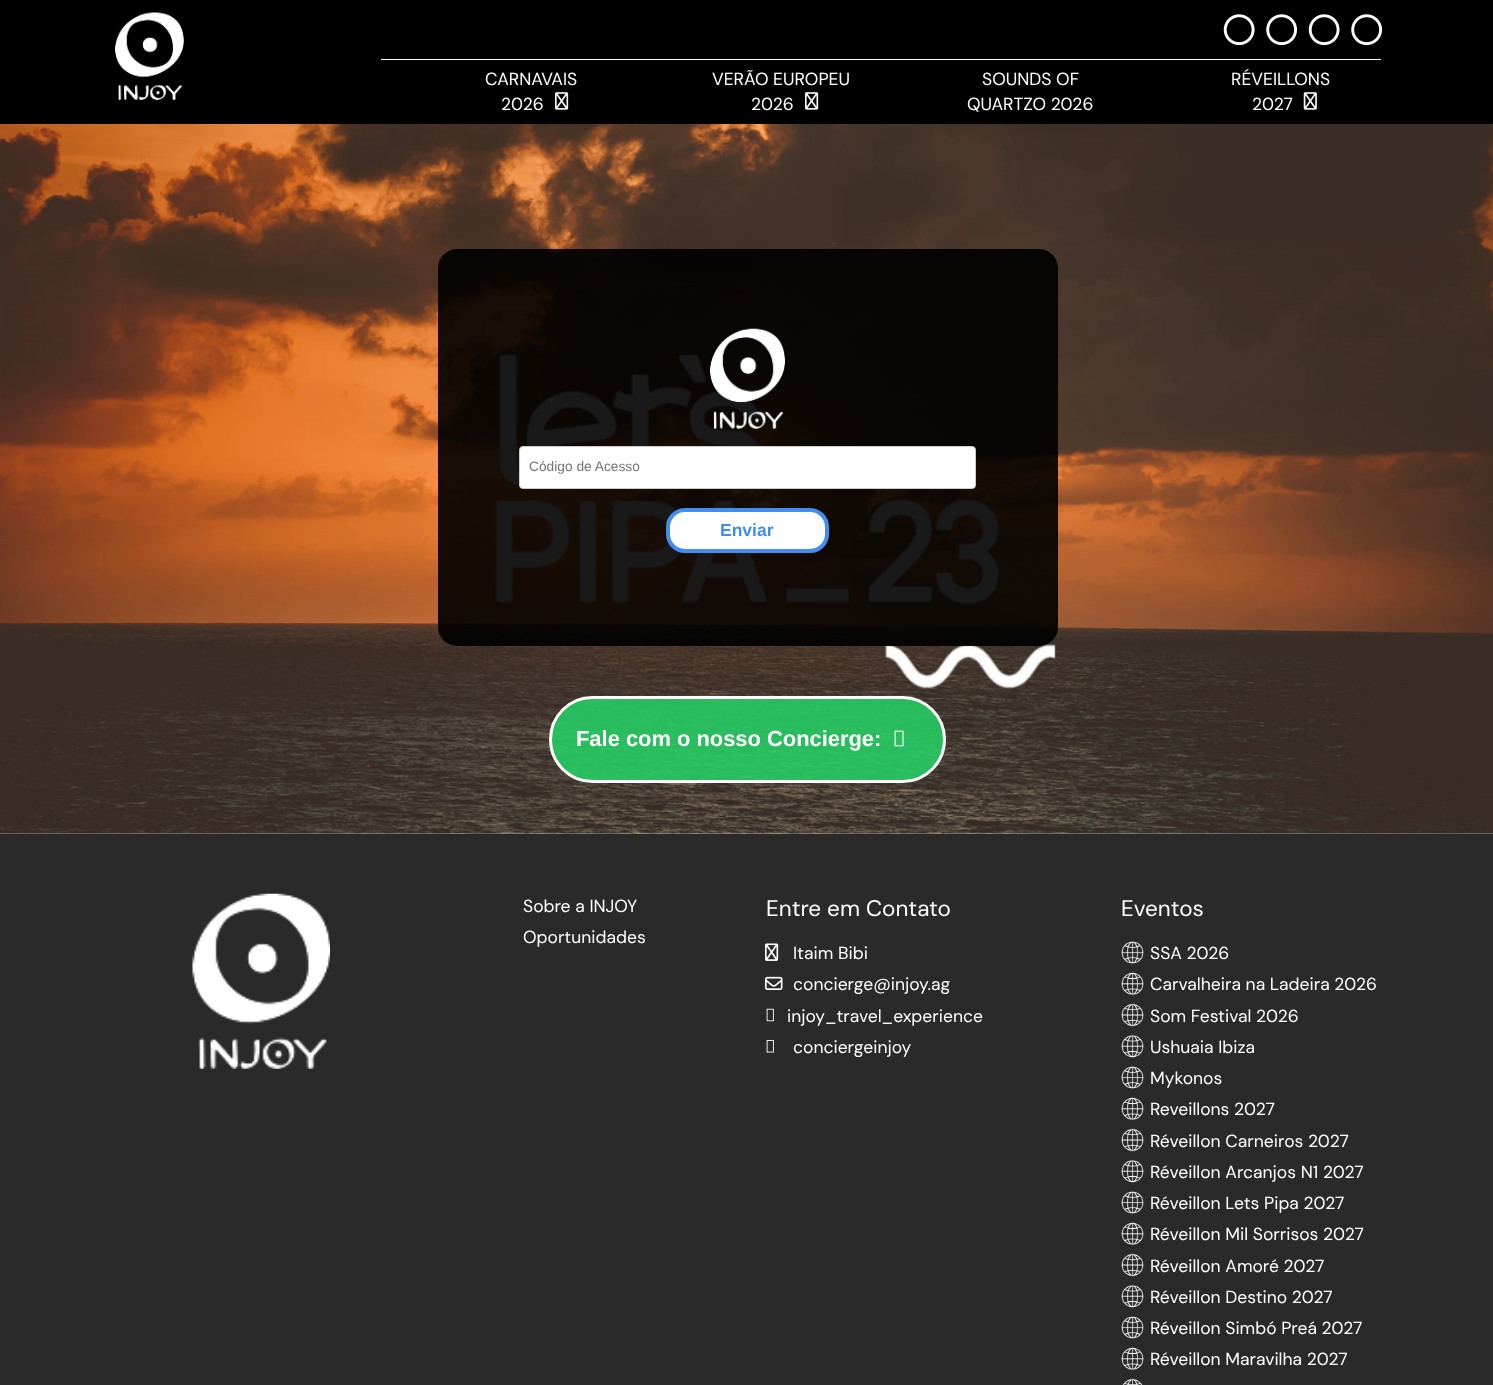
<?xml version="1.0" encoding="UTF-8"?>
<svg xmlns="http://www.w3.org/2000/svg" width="1493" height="1385">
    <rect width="100%" height="100%" fill="#FFFFFF"/>
    <rect x="0" y="0" width="1493" height="124" fill="#000000"/>
    <image x="1223" y="14" width="32" height="32" href="img_01.png"/>
    <image x="1266" y="14" width="32" height="32" href="img_02.png"/>
    <image x="1308" y="14" width="32" height="32" href="img_01.png"/>
    <image x="1351" y="14" width="32" height="32" href="img_02.png"/>
    <image x="115" y="12" width="69" height="88" href="img_03.png"/>
    <rect x="381" y="59" width="1000" height="1" fill="#FFFFFF"/>
    <text x="485" y="85" font-family="DM Sans" font-size="17.5" fill="#FFFFFF">CARNAVAIS</text>
    <text x="501" y="110" font-family="DM Sans" font-size="17.5" fill="#FFFFFF">2026</text>
    <image x="555" y="92" width="14" height="18" href="img_04.png"/>
    <text x="712" y="85" font-family="DM Sans" font-size="17.5" fill="#FFFFFF">VERÃO EUROPEU</text>
    <text x="751" y="110" font-family="DM Sans" font-size="17.5" fill="#FFFFFF">2026</text>
    <image x="805" y="92" width="14" height="18" href="img_04.png"/>
    <text x="982" y="85" font-family="DM Sans" font-size="17.5" fill="#FFFFFF">SOUNDS OF</text>
    <text x="967" y="110" font-family="DM Sans" font-size="17.5" fill="#FFFFFF">QUARTZO 2026</text>
    <text x="1231" y="85" font-family="DM Sans" font-size="17.5" fill="#FFFFFF">RÉVEILLONS</text>
    <text x="1252" y="110" font-family="DM Sans" font-size="17.5" fill="#FFFFFF">2027</text>
    <image x="1303" y="92" width="14" height="18" href="img_05.png"/>
    <image x="0" y="124" width="1493" height="710" href="img_06.png"/>
    <rect x="438" y="249" width="620" height="397" rx="19" fill="#000000" fill-opacity="0.9"/>
    <image x="710" y="328" width="75" height="101" href="img_07.png"/>
    <rect x="519.5" y="446.5" width="456" height="42" rx="3.5" fill="#FFFFFF" stroke="#CCCCCC"/>
    <text x="529" y="471" font-family="Liberation Sans" font-size="13.75" fill="#757575">Código de Acesso</text>
    <rect x="668" y="510" width="159" height="41" rx="17" fill="#FFFFFF" stroke="#428EF0" stroke-width="4"/>
    <text x="720" y="536" font-family="Liberation Sans" font-size="17.5" font-weight="700" fill="#428EF0">Enviar</text>
    <rect x="550.5" y="697.5" width="394" height="84" rx="42" fill="#25D366" fill-opacity="0.85" stroke="#FFFFFF" stroke-width="3"/>
    <text x="576" y="746" font-family="Liberation Sans" font-size="21.9" font-weight="700" fill="#FFFFFF">Fale com o nosso Concierge:</text>
    <image x="894" y="730" width="10" height="17" href="img_08.png"/>
    <rect x="0" y="834" width="1493" height="551" fill="#2A2A2A"/>
    <image x="192" y="893" width="138" height="176" href="img_09.png"/>
    <text font-family="DM Sans" font-size="17.5" fill="#FFFFFF">
        <tspan x="523" y="912">Sobre a INJOY</tspan>
        <tspan x="523" y="943">Oportunidades</tspan>
    </text>
    <text x="766" y="916" font-family="DM Sans" font-size="22.5" fill="#FFFFFF">Entre em Contato</text>
    <image x="765" y="943" width="14" height="18" href="img_10.png"/>
    <text x="793" y="959" font-family="DM Sans" font-size="17.5" fill="#FFFFFF">Itaim Bibi</text>
    <image x="765" y="976" width="18" height="14" href="img_11.png"/>
    <text x="793" y="990" font-family="DM Sans" font-size="17.5" fill="#FFFFFF">concierge@injoy.ag</text>
    <image x="766" y="1008" width="8" height="14" href="img_12.png"/>
    <text x="787" y="1022" font-family="DM Sans" font-size="17.5" fill="#FFFFFF">injoy_travel_experience</text>
    <image x="766" y="1040" width="8" height="13" href="img_13.png"/>
    <text x="793" y="1053" font-family="DM Sans" font-size="17.5" fill="#FFFFFF">conciergeinjoy</text>
    <text x="1121" y="916" font-family="DM Sans" font-size="22.5" fill="#FFFFFF">Eventos</text>
    <image x="1121" y="941" width="23" height="23" href="img_14.png"/>
    <text x="1150" y="959" font-family="DM Sans" font-size="17.5" fill="#FFFFFF">SSA 2026</text>
    <image x="1121" y="972" width="23" height="23" href="img_15.png"/>
    <text x="1150" y="990" font-family="DM Sans" font-size="17.5" fill="#FFFFFF">Carvalheira na Ladeira 2026</text>
    <image x="1121" y="1003" width="23" height="24" href="img_16.png"/>
    <text x="1150" y="1022" font-family="DM Sans" font-size="17.5" fill="#FFFFFF">Som Festival 2026</text>
    <image x="1121" y="1035" width="23" height="23" href="img_17.png"/>
    <text x="1150" y="1053" font-family="DM Sans" font-size="17.5" fill="#FFFFFF">Ushuaia Ibiza</text>
    <image x="1121" y="1066" width="23" height="23" href="img_14.png"/>
    <text x="1150" y="1084" font-family="DM Sans" font-size="17.5" fill="#FFFFFF">Mykonos</text>
    <image x="1121" y="1097" width="23" height="23" href="img_15.png"/>
    <text x="1150" y="1115" font-family="DM Sans" font-size="17.5" fill="#FFFFFF">Reveillons 2027</text>
    <image x="1121" y="1128" width="23" height="24" href="img_16.png"/>
    <text x="1150" y="1147" font-family="DM Sans" font-size="17.5" fill="#FFFFFF">Réveillon Carneiros 2027</text>
    <image x="1121" y="1160" width="23" height="23" href="img_17.png"/>
    <text x="1150" y="1178" font-family="DM Sans" font-size="17.5" fill="#FFFFFF">Réveillon Arcanjos N1 2027</text>
    <image x="1121" y="1191" width="23" height="23" href="img_14.png"/>
    <text x="1150" y="1209" font-family="DM Sans" font-size="17.5" fill="#FFFFFF">Réveillon Lets Pipa 2027</text>
    <image x="1121" y="1222" width="23" height="23" href="img_15.png"/>
    <text x="1150" y="1240" font-family="DM Sans" font-size="17.5" fill="#FFFFFF">Réveillon Mil Sorrisos 2027</text>
    <image x="1121" y="1253" width="23" height="24" href="img_16.png"/>
    <text x="1150" y="1272" font-family="DM Sans" font-size="17.5" fill="#FFFFFF">Réveillon Amoré 2027</text>
    <image x="1121" y="1285" width="23" height="23" href="img_17.png"/>
    <text x="1150" y="1303" font-family="DM Sans" font-size="17.5" fill="#FFFFFF">Réveillon Destino 2027</text>
    <image x="1121" y="1316" width="23" height="23" href="img_14.png"/>
    <text x="1150" y="1334" font-family="DM Sans" font-size="17.5" fill="#FFFFFF">Réveillon Simbó Preá 2027</text>
    <image x="1121" y="1347" width="23" height="23" href="img_15.png"/>
    <text x="1150" y="1365" font-family="DM Sans" font-size="17.5" fill="#FFFFFF">Réveillon Maravilha 2027</text>
    <image x="1122" y="1378" width="21" height="7" href="img_18.png"/>
</svg>
